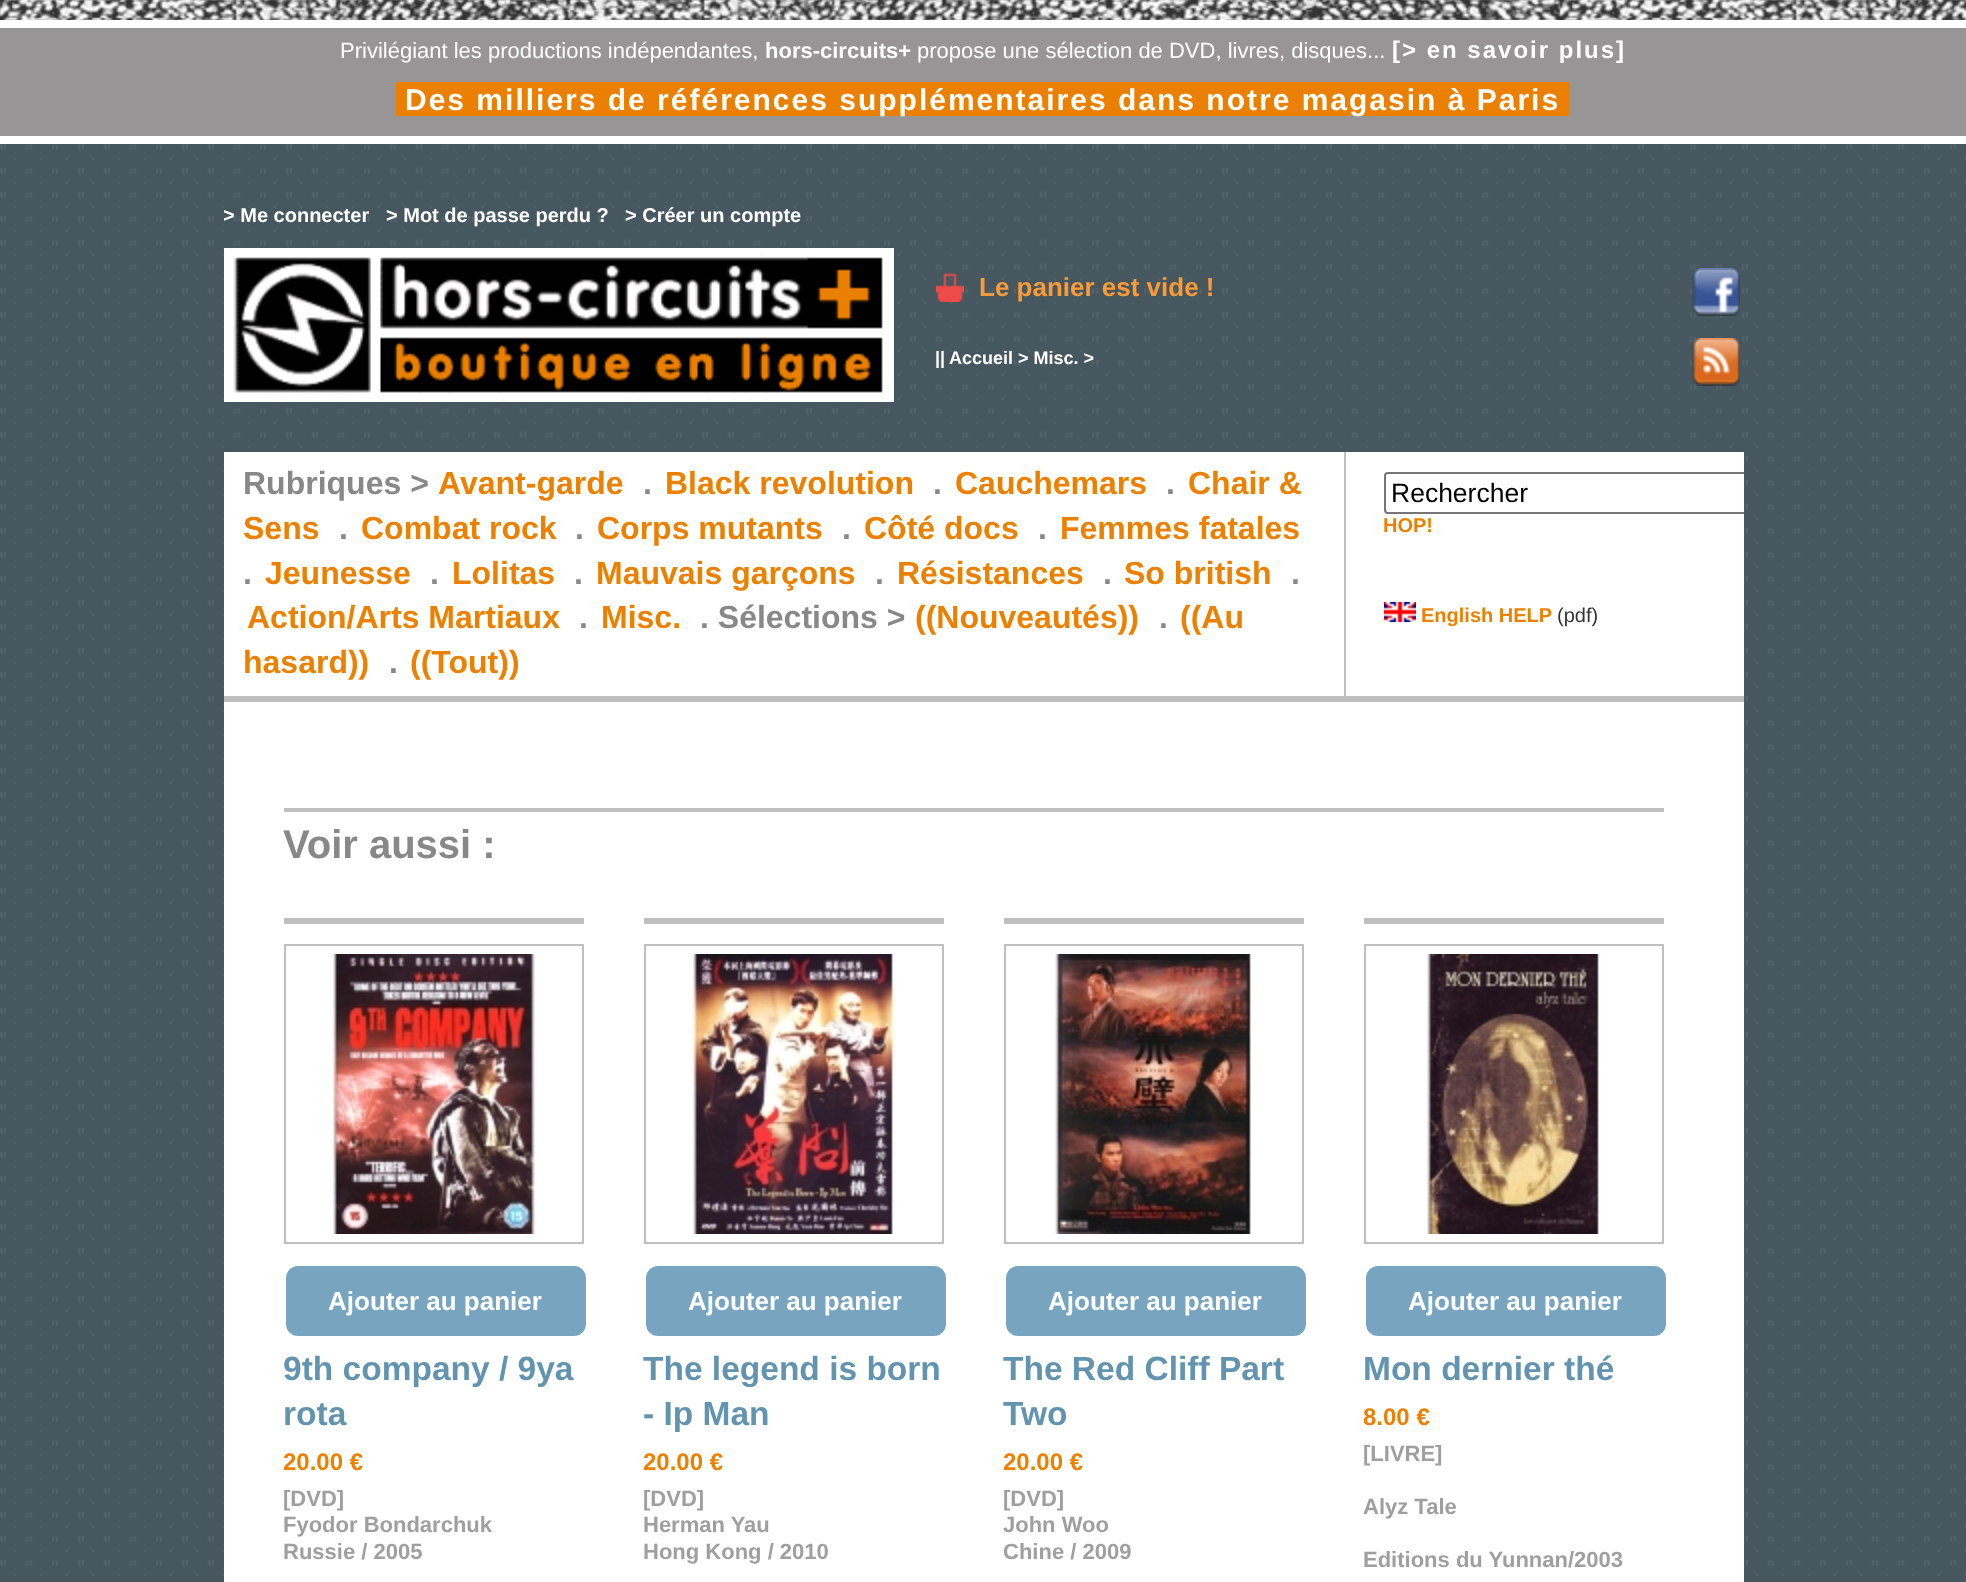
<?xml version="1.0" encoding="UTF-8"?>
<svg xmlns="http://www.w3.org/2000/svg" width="1966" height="1582">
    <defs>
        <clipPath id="clip1"><rect x="224" y="174" width="1520" height="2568"/></clipPath>
    </defs>
    <rect width="100%" height="100%" fill="#47575F"/>
    <image x="0" y="144" width="1966" height="1432" href="img_01.png"/>
    <image x="0" y="0" width="1966" height="20" href="img_02.png"/>
    <rect x="0" y="28" width="1966" height="108" fill="#979595"/>
    <rect x="0" y="20" width="1966" height="8" fill="#FFFFFF"/>
    <rect x="0" y="136" width="1966" height="8" fill="#FFFFFF"/>
    <text x="340" y="58" font-family="Liberation Sans" font-size="22" fill="#FFFFFF">Privilégiant les productions indépendantes,</text>
    <text x="765" y="58" font-family="Liberation Sans" font-size="22" font-weight="700" fill="#FFFFFF">hors-circuits+</text>
    <text x="917" y="58" font-family="Liberation Sans" font-size="22" fill="#FFFFFF">propose une sélection de DVD, livres, disques...</text>
    <text x="1392" y="58" font-family="Liberation Sans" font-size="24" font-weight="700" letter-spacing="2" fill="#FFFFFF">[&gt; en savoir plus]</text>
    <rect x="396" y="82" width="1174" height="34" fill="#EB8000"/>
    <text x="405" y="110" font-family="Liberation Sans" font-size="30" font-weight="700" letter-spacing="2" fill="#FFFFFF">Des milliers de références supplémentaires dans notre magasin à Paris</text>
    <g clip-path="url(#clip1)">
        <text x="223" y="222" font-family="Liberation Sans" font-size="20" font-weight="700" fill="#FFFFFF">&gt; Me connecter</text>
    </g>
    <text x="386" y="222" font-family="Liberation Sans" font-size="20" font-weight="700" fill="#FFFFFF">&gt; Mot de passe perdu ?</text>
    <text x="625" y="222" font-family="Liberation Sans" font-size="20" font-weight="700" fill="#FFFFFF">&gt; Créer un compte</text>
    <image x="224" y="248" width="670" height="154" href="img_03.png"/>
    <image x="936" y="273" width="28" height="29" href="img_04.png"/>
    <text x="979" y="296" font-family="Liberation Sans" font-size="26" font-weight="700" fill="#FA9B39">Le panier est vide !</text>
    <image x="1692" y="268" width="48" height="48" href="img_05.png"/>
    <image x="1692" y="338" width="48" height="48" href="img_06.png"/>
    <text x="935" y="364" font-family="Liberation Sans" font-size="18" font-weight="700" fill="#FFFFFF">||</text>
    <text x="949" y="364" font-family="Liberation Sans" font-size="18" font-weight="700" fill="#FFFFFF">Accueil &gt; Misc. &gt;</text>
    <rect x="224" y="452" width="1520" height="244" fill="#FFFFFF"/>
    <rect x="224" y="696" width="1520" height="6" fill="#BFBFBF"/>
    <rect x="1344" y="452" width="2" height="244" fill="#BFBFBF"/>
    <text x="243" y="494" font-family="Liberation Sans" font-size="32" font-weight="700" fill="#888888">Rubriques &gt;</text>
    <text x="438" y="494" font-family="Liberation Sans" font-size="32" font-weight="700" fill="#EC8000">Avant-garde</text>
    <text x="643" y="494" font-family="Liberation Sans" font-size="32" font-weight="700" fill="#888888">.</text>
    <text x="665" y="494" font-family="Liberation Sans" font-size="32" font-weight="700" fill="#EC8000">Black revolution</text>
    <text x="933" y="494" font-family="Liberation Sans" font-size="32" font-weight="700" fill="#888888">.</text>
    <text x="955" y="494" font-family="Liberation Sans" font-size="32" font-weight="700" fill="#EC8000">Cauchemars</text>
    <text x="1166" y="494" font-family="Liberation Sans" font-size="32" font-weight="700" fill="#888888">.</text>
    <text x="1188" y="494" font-family="Liberation Sans" font-size="32" font-weight="700" fill="#EC8000">Chair &amp;</text>
    <text x="243" y="539" font-family="Liberation Sans" font-size="32" font-weight="700" fill="#EC8000">Sens</text>
    <text x="339" y="539" font-family="Liberation Sans" font-size="32" font-weight="700" fill="#888888">.</text>
    <text x="361" y="539" font-family="Liberation Sans" font-size="32" font-weight="700" fill="#EC8000">Combat rock</text>
    <text x="575" y="539" font-family="Liberation Sans" font-size="32" font-weight="700" fill="#888888">.</text>
    <text x="597" y="539" font-family="Liberation Sans" font-size="32" font-weight="700" fill="#EC8000">Corps mutants</text>
    <text x="842" y="539" font-family="Liberation Sans" font-size="32" font-weight="700" fill="#888888">.</text>
    <text x="864" y="539" font-family="Liberation Sans" font-size="32" font-weight="700" fill="#EC8000">Côté docs</text>
    <text x="1038" y="539" font-family="Liberation Sans" font-size="32" font-weight="700" fill="#888888">.</text>
    <text x="1060" y="539" font-family="Liberation Sans" font-size="32" font-weight="700" fill="#EC8000">Femmes fatales</text>
    <text x="243" y="584" font-family="Liberation Sans" font-size="32" font-weight="700" fill="#888888">.</text>
    <text x="265" y="584" font-family="Liberation Sans" font-size="32" font-weight="700" fill="#EC8000">Jeunesse</text>
    <text x="430" y="584" font-family="Liberation Sans" font-size="32" font-weight="700" fill="#888888">.</text>
    <text x="452" y="584" font-family="Liberation Sans" font-size="32" font-weight="700" fill="#EC8000">Lolitas</text>
    <text x="574" y="584" font-family="Liberation Sans" font-size="32" font-weight="700" fill="#888888">.</text>
    <text x="596" y="584" font-family="Liberation Sans" font-size="32" font-weight="700" fill="#EC8000">Mauvais garçons</text>
    <text x="875" y="584" font-family="Liberation Sans" font-size="32" font-weight="700" fill="#888888">.</text>
    <text x="897" y="584" font-family="Liberation Sans" font-size="32" font-weight="700" fill="#EC8000">Résistances</text>
    <text x="1103" y="584" font-family="Liberation Sans" font-size="32" font-weight="700" fill="#888888">.</text>
    <text x="1124" y="584" font-family="Liberation Sans" font-size="32" font-weight="700" fill="#EC8000">So british</text>
    <text x="1291" y="584" font-family="Liberation Sans" font-size="32" font-weight="700" fill="#888888">.</text>
    <text x="247" y="628" font-family="Liberation Sans" font-size="32" font-weight="700" fill="#EC8000">Action/Arts Martiaux</text>
    <text x="579" y="628" font-family="Liberation Sans" font-size="32" font-weight="700" fill="#888888">.</text>
    <text x="601" y="628" font-family="Liberation Sans" font-size="32" font-weight="700" fill="#EC8000">Misc.</text>
    <text x="700" y="628" font-family="Liberation Sans" font-size="32" font-weight="700" fill="#888888">. Sélections &gt;</text>
    <text x="915" y="628" font-family="Liberation Sans" font-size="32" font-weight="700" fill="#EC8000">((Nouveautés))</text>
    <text x="1159" y="628" font-family="Liberation Sans" font-size="32" font-weight="700" fill="#888888">.</text>
    <text x="1180" y="628" font-family="Liberation Sans" font-size="32" font-weight="700" fill="#EC8000">((Au</text>
    <text x="243" y="673" font-family="Liberation Sans" font-size="32" font-weight="700" fill="#EC8000">hasard))</text>
    <text x="389" y="673" font-family="Liberation Sans" font-size="32" font-weight="700" fill="#888888">.</text>
    <text x="410" y="673" font-family="Liberation Sans" font-size="32" font-weight="700" fill="#EC8000">((Tout))</text>
    <g clip-path="url(#clip1)">
        <rect x="1385" y="473" width="368" height="40" rx="3" fill="none" stroke="#767676" stroke-width="2"/>
    </g>
    <text x="1391" y="502" font-family="Liberation Sans" font-size="26.5" fill="#000000">Rechercher</text>
    <text x="1383" y="532" font-family="Liberation Sans" font-size="20" font-weight="700" fill="#EC8000">HOP!</text>
    <image x="1384" y="602" width="32" height="20" href="img_07.png"/>
    <text x="1421" y="622" font-family="Liberation Sans" font-size="20" font-weight="700" fill="#EC8000">English HELP</text>
    <text x="1557" y="622" font-family="Liberation Sans" font-size="20" fill="#333333">(pdf)</text>
    <rect x="224" y="702" width="1520" height="880" fill="#FFFFFF"/>
    <rect x="284" y="808" width="1380" height="4" fill="#BFBFBF"/>
    <text x="283" y="858" font-family="Liberation Sans" font-size="40" font-weight="700" fill="#888888">Voir aussi :</text>
    <rect x="284" y="918" width="300" height="6" fill="#BFBFBF"/>
    <rect x="285" y="945" width="298" height="298" fill="none" stroke="#BFBFBF" stroke-width="2"/>
    <image x="332" y="954" width="203" height="280" href="img_08.png"/>
    <rect x="285" y="1265" width="302" height="72" rx="13" fill="#77A5BF" stroke="#FFFFFF" stroke-width="2"/>
    <text x="328" y="1310" font-family="Liberation Sans" font-size="26" font-weight="700" fill="#FFFFFF">Ajouter au panier</text>
    <text font-family="Liberation Sans" font-size="33.5" font-weight="700" fill="#6294AF">
        <tspan x="283" y="1380">9th company / 9ya</tspan>
        <tspan x="283" y="1425">rota</tspan>
    </text>
    <text x="283" y="1470" font-family="Liberation Sans" font-size="24" font-weight="700" fill="#EC8000">20.00 €</text>
    <text font-family="Liberation Sans" font-size="22" font-weight="700" fill="#9F9F9F">
        <tspan x="283" y="1506">[DVD]</tspan>
        <tspan x="283" y="1532">Fyodor Bondarchuk</tspan>
        <tspan x="283" y="1559">Russie / 2005</tspan>
    </text>
    <rect x="644" y="918" width="300" height="6" fill="#BFBFBF"/>
    <rect x="645" y="945" width="298" height="298" fill="none" stroke="#BFBFBF" stroke-width="2"/>
    <image x="692" y="954" width="204" height="280" href="img_09.png"/>
    <rect x="645" y="1265" width="302" height="72" rx="13" fill="#77A5BF" stroke="#FFFFFF" stroke-width="2"/>
    <text x="688" y="1310" font-family="Liberation Sans" font-size="26" font-weight="700" fill="#FFFFFF">Ajouter au panier</text>
    <text font-family="Liberation Sans" font-size="33.5" font-weight="700" fill="#6294AF">
        <tspan x="643" y="1380">The legend is born</tspan>
        <tspan x="643" y="1425">- Ip Man</tspan>
    </text>
    <text x="643" y="1470" font-family="Liberation Sans" font-size="24" font-weight="700" fill="#EC8000">20.00 €</text>
    <text font-family="Liberation Sans" font-size="22" font-weight="700" fill="#9F9F9F">
        <tspan x="643" y="1506">[DVD]</tspan>
        <tspan x="643" y="1532">Herman Yau</tspan>
        <tspan x="643" y="1559">Hong Kong / 2010</tspan>
    </text>
    <rect x="1004" y="918" width="300" height="6" fill="#BFBFBF"/>
    <rect x="1005" y="945" width="298" height="298" fill="none" stroke="#BFBFBF" stroke-width="2"/>
    <image x="1055" y="954" width="196" height="280" href="img_10.png"/>
    <rect x="1005" y="1265" width="302" height="72" rx="13" fill="#77A5BF" stroke="#FFFFFF" stroke-width="2"/>
    <text x="1048" y="1310" font-family="Liberation Sans" font-size="26" font-weight="700" fill="#FFFFFF">Ajouter au panier</text>
    <text font-family="Liberation Sans" font-size="33.5" font-weight="700" fill="#6294AF">
        <tspan x="1003" y="1380">The Red Cliff Part</tspan>
        <tspan x="1003" y="1425">Two</tspan>
    </text>
    <text x="1003" y="1470" font-family="Liberation Sans" font-size="24" font-weight="700" fill="#EC8000">20.00 €</text>
    <text font-family="Liberation Sans" font-size="22" font-weight="700" fill="#9F9F9F">
        <tspan x="1003" y="1506">[DVD]</tspan>
        <tspan x="1003" y="1532">John Woo</tspan>
        <tspan x="1003" y="1559">Chine / 2009</tspan>
    </text>
    <rect x="1364" y="918" width="300" height="6" fill="#BFBFBF"/>
    <rect x="1365" y="945" width="298" height="298" fill="none" stroke="#BFBFBF" stroke-width="2"/>
    <image x="1427" y="954" width="172" height="280" href="img_11.png"/>
    <rect x="1365" y="1265" width="302" height="72" rx="13" fill="#77A5BF" stroke="#FFFFFF" stroke-width="2"/>
    <text x="1408" y="1310" font-family="Liberation Sans" font-size="26" font-weight="700" fill="#FFFFFF">Ajouter au panier</text>
    <text x="1363" y="1380" font-family="Liberation Sans" font-size="33.5" font-weight="700" fill="#6294AF">Mon dernier thé</text>
    <text x="1363" y="1425" font-family="Liberation Sans" font-size="24" font-weight="700" fill="#EC8000">8.00 €</text>
    <text x="1363" y="1461" font-family="Liberation Sans" font-size="22" font-weight="700" fill="#9F9F9F">[LIVRE]</text>
    <text x="1363" y="1514" font-family="Liberation Sans" font-size="22" font-weight="700" fill="#9F9F9F">Alyz Tale</text>
    <text x="1363" y="1567" font-family="Liberation Sans" font-size="22" font-weight="700" fill="#9F9F9F">Editions du Yunnan/2003</text>
</svg>
